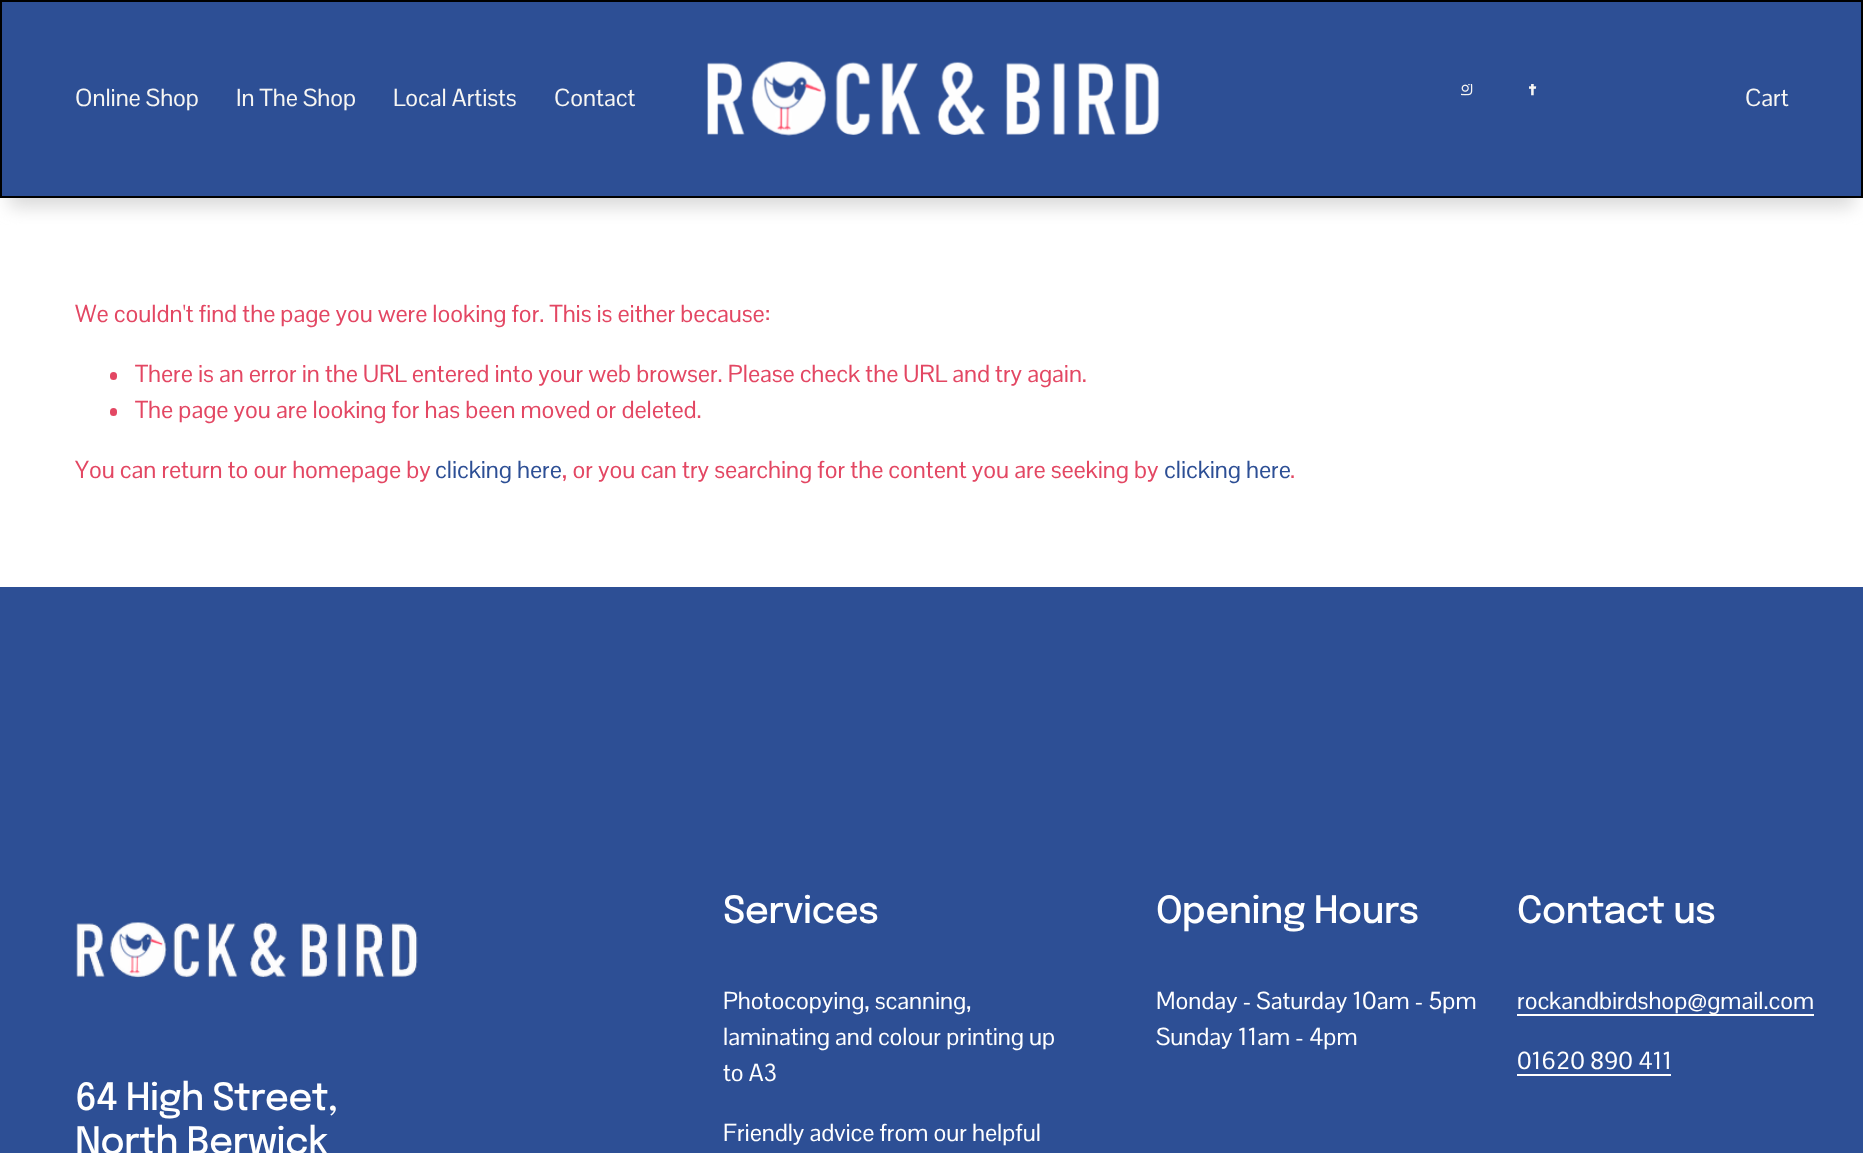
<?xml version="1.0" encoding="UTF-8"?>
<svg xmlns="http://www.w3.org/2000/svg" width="1863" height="1153">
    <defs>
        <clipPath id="clip1"><rect x="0" y="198" width="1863" height="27"/></clipPath>
        <filter id="blur1" x="-50%" y="-200%" width="200%" height="500%"><feGaussianBlur stdDeviation="9"/></filter>
    </defs>
    <rect width="100%" height="100%" fill="#FFFFFF"/>
    <rect x="2" y="2" width="1859" height="194" fill="#2D4F95"/>
    <g clip-path="url(#clip1)">
        <rect x="9" y="27" width="1845" height="180" fill="#D9D9D9" filter="url(#blur1)"/>
    </g>
    <rect x="1" y="1" width="1861" height="196" fill="none" stroke="#000000" stroke-width="2"/>
    <text x="75" y="106" font-family="Pontano Sans" font-size="24" fill="#F7F6F3">Online Shop</text>
    <text x="236" y="106" font-family="Pontano Sans" font-size="24" fill="#F7F6F3">In The Shop</text>
    <text x="393" y="106" font-family="Pontano Sans" font-size="24" fill="#F7F6F3">Local Artists</text>
    <text x="554" y="106" font-family="Pontano Sans" font-size="24" fill="#F7F6F3">Contact</text>
    <image x="707" y="61" width="453" height="75" href="img_01.png"/>
    <image x="1461" y="84" width="12" height="12" href="img_02.png"/>
    <image x="1529" y="84" width="8" height="12" href="img_03.png"/>
    <text x="1745" y="106" font-family="Pontano Sans" font-size="24" fill="#F7F6F3">Cart</text>
    <text x="75" y="322" font-family="Pontano Sans" font-size="24" fill="#E34763">We couldn't find the page you were looking for. This is either because:</text>
    <rect x="110" y="372" width="7" height="8" rx="3.5" fill="#E34763"/>
    <text x="135" y="382" font-family="Pontano Sans" font-size="24" fill="#E34763">There is an error in the URL entered into your web browser. Please check the URL and try again.</text>
    <rect x="110" y="408" width="7" height="8" rx="3.5" fill="#E34763"/>
    <text x="135" y="418" font-family="Pontano Sans" font-size="24" fill="#E34763">The page you are looking for has been moved or deleted.</text>
    <text x="75" y="478" font-family="Pontano Sans" font-size="24" fill="#E34763">You can return to our homepage by</text>
    <text x="435" y="478" font-family="Pontano Sans" font-size="24" fill="#2D4F95">clicking here</text>
    <text x="562" y="478" font-family="Pontano Sans" font-size="24" fill="#E34763">, or you can try searching for the content you are seeking by</text>
    <text x="1164" y="478" font-family="Pontano Sans" font-size="24" fill="#2D4F95">clicking here</text>
    <text x="1290" y="478" font-family="Pontano Sans" font-size="24" fill="#E34763">.</text>
    <rect x="0" y="587" width="1863" height="566" fill="#2D4F95"/>
    <image x="76" y="922" width="342" height="56" href="img_04.png"/>
    <text x="723" y="923" font-family="Epilogue" font-size="37.5" font-weight="500" letter-spacing="-0.75" fill="#FFFFFF">Services</text>
    <text font-family="Pontano Sans" font-size="24" fill="#FFFFFF">
        <tspan x="723" y="1009">Photocopying, scanning,</tspan>
        <tspan x="723" y="1045">laminating and colour printing up</tspan>
        <tspan x="723" y="1081">to A3</tspan>
    </text>
    <text x="723" y="1141" font-family="Pontano Sans" font-size="24" fill="#FFFFFF">Friendly advice from our helpful</text>
    <text x="1156" y="923" font-family="Epilogue" font-size="37.5" font-weight="500" letter-spacing="-0.75" fill="#FFFFFF">Opening Hours</text>
    <text font-family="Pontano Sans" font-size="24" fill="#FFFFFF">
        <tspan x="1156" y="1009">Monday - Saturday 10am - 5pm</tspan>
        <tspan x="1156" y="1045">Sunday 11am - 4pm</tspan>
    </text>
    <text x="1517" y="923" font-family="Epilogue" font-size="37.5" font-weight="500" letter-spacing="-0.75" fill="#FFFFFF">Contact us</text>
    <rect x="1517" y="1014" width="297" height="2" fill="#FFFFFF"/>
    <text x="1517" y="1009" font-family="Pontano Sans" font-size="24" fill="#FFFFFF">rockandbirdshop@gmail.com</text>
    <text x="1517" y="1069" font-family="Pontano Sans" font-size="24" fill="#FFFFFF">01620 890 411</text>
    <rect x="1517" y="1074" width="154" height="2" fill="#FFFFFF"/>
    <text font-family="Epilogue" font-size="37.5" font-weight="500" letter-spacing="-0.75" fill="#FFFFFF">
        <tspan x="75" y="1110">64 High Street,</tspan>
        <tspan x="75" y="1154">North Berwick</tspan>
    </text>
</svg>
